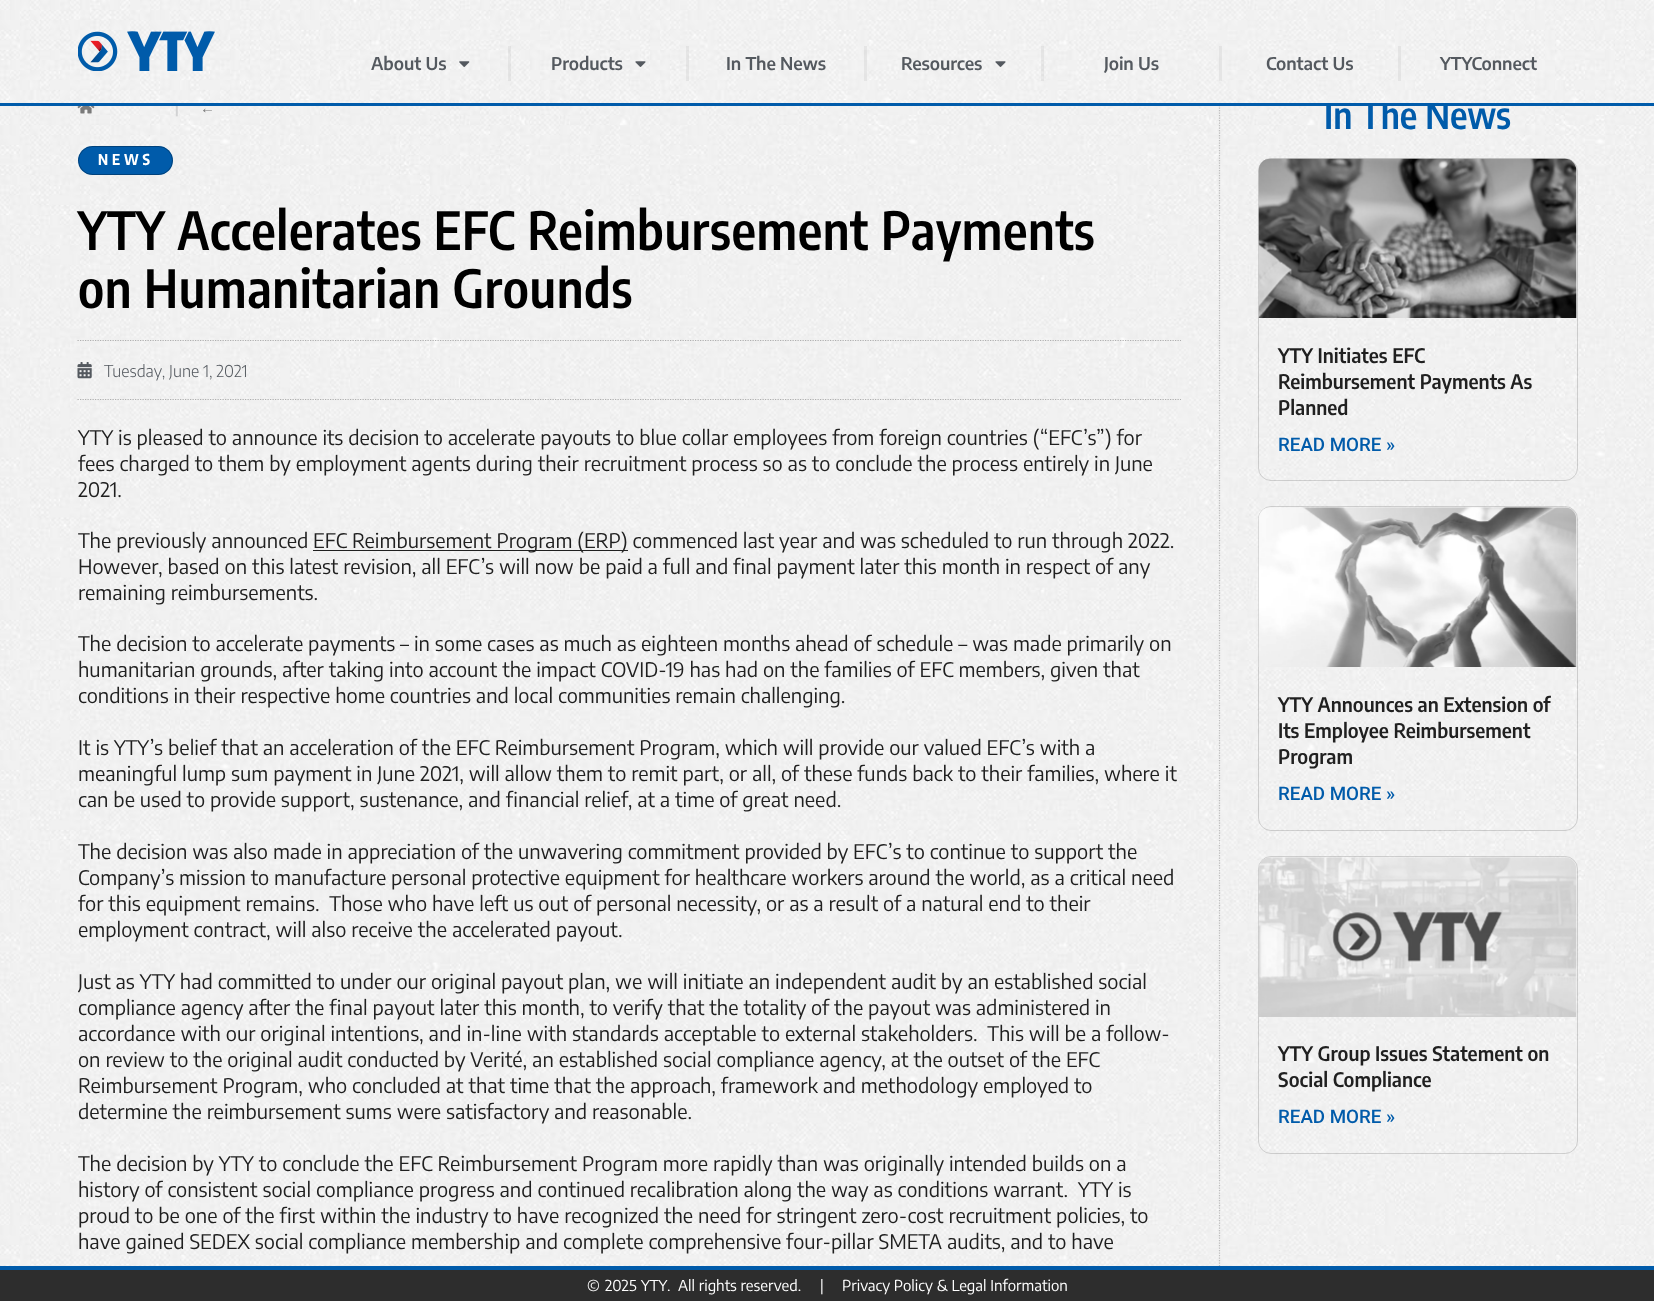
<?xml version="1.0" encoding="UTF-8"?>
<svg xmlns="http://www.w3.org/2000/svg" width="1654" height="1301">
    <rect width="100%" height="100%" fill="#FFFFFF"/>
    <image x="0" y="106" width="1654" height="1160" href="img_01.png"/>
    <text x="175" y="113" font-family="Encode Sans Condensed" font-size="15" font-weight="700" letter-spacing="2" fill="#D1D2D3">|</text>
    <path d="M 1219.5 95 V 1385" fill="none" stroke="#7A7A7A" stroke-opacity="0.44" stroke-width="1.2" stroke-dasharray="1.25 1.25"/>
    <text x="1324" y="129" font-family="Encode Sans Condensed" font-size="37.5" font-weight="600" fill="#005BAA">In The News</text>
    <image x="0" y="0" width="1654" height="103" href="img_02.png"/>
    <rect x="0" y="103" width="1654" height="3" fill="#005BAA"/>
    <image x="78" y="31" width="137" height="40" href="img_03.png"/>
    <rect x="508" y="46" width="3" height="35" fill="#000000" fill-opacity="0.05"/>
    <text x="371" y="70" font-family="'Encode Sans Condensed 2'" font-size="17.5" font-weight="600" letter-spacing="-0.1" fill="#54595F">About Us</text>
    <image x="459" y="61" width="11" height="6" href="img_04.png"/>
    <rect x="686" y="46" width="3" height="35" fill="#000000" fill-opacity="0.05"/>
    <text x="551" y="70" font-family="'Encode Sans Condensed 2'" font-size="17.5" font-weight="600" letter-spacing="-0.1" fill="#54595F">Products</text>
    <image x="635" y="61" width="11" height="6" href="img_05.png"/>
    <rect x="864" y="46" width="3" height="35" fill="#000000" fill-opacity="0.05"/>
    <text x="726" y="70" font-family="'Encode Sans Condensed 2'" font-size="17.5" font-weight="600" letter-spacing="-0.1" fill="#54595F">In The News</text>
    <rect x="1041" y="46" width="3" height="35" fill="#000000" fill-opacity="0.05"/>
    <text x="901" y="70" font-family="'Encode Sans Condensed 2'" font-size="17.5" font-weight="600" letter-spacing="-0.1" fill="#54595F">Resources</text>
    <image x="995" y="61" width="11" height="6" href="img_06.png"/>
    <rect x="1219" y="46" width="3" height="35" fill="#000000" fill-opacity="0.05"/>
    <text x="1104" y="70" font-family="'Encode Sans Condensed 2'" font-size="17.5" font-weight="600" letter-spacing="-0.1" fill="#54595F">Join Us</text>
    <rect x="1398" y="46" width="3" height="35" fill="#000000" fill-opacity="0.05"/>
    <text x="1266" y="70" font-family="'Encode Sans Condensed 2'" font-size="17.5" font-weight="600" letter-spacing="-0.1" fill="#54595F">Contact Us</text>
    <text x="1440" y="70" font-family="'Encode Sans Condensed 2'" font-size="17.5" font-weight="600" letter-spacing="-0.1" fill="#54595F">YTYConnect</text>
    <image x="77" y="106" width="18" height="8" href="img_07.png"/>
    <text x="200" y="113" font-family="Liberation Sans" font-size="15" font-weight="700" letter-spacing="2" fill="#7A7A7A">←</text>
    <rect x="78" y="146" width="95" height="29" rx="14.5" fill="#005BAA"/>
    <rect x="78.5" y="146.5" width="94" height="28" rx="14" fill="none" stroke="#020101" stroke-opacity="0.27"/>
    <text x="98" y="165" font-family="Encode Sans Condensed" font-size="15" font-weight="700" letter-spacing="4" fill="#FFFFFF">NEWS</text>
    <text font-family="Encode Sans Condensed" font-size="52.5" font-weight="600" letter-spacing="0.6" fill="#000000">
        <tspan x="78" y="250">YTY Accelerates EFC Reimbursement Payments</tspan>
        <tspan x="78" y="308">on Humanitarian Grounds</tspan>
    </text>
    <path d="M 77.5 340.5 H 1181" fill="none" stroke="#AFAFAF" stroke-width="1.2" stroke-dasharray="1.25 1.25"/>
    <path d="M 77.5 399.5 H 1181" fill="none" stroke="#AFAFAF" stroke-width="1.2" stroke-dasharray="1.25 1.25"/>
    <image x="77" y="362" width="15" height="17" href="img_08.png"/>
    <text x="104" y="377" font-family="Encode Sans Condensed" font-size="16.25" font-weight="300" fill="#54595F">Tuesday, June 1, 2021</text>
    <text font-family="Encode Sans Condensed" font-size="20" fill="#202020">
        <tspan x="78" y="445">YTY is pleased to announce its decision to accelerate payouts to blue collar employees from foreign countries (“EFC’s”) for</tspan>
        <tspan x="78" y="471">fees charged to them by employment agents during their recruitment process so as to conclude the process entirely in June</tspan>
        <tspan x="78" y="497">2021.</tspan>
    </text>
    <text x="78" y="548" font-family="Encode Sans Condensed" font-size="20" fill="#202020">The previously announced</text>
    <rect x="313" y="550" width="315" height="1" fill="#202020"/>
    <text x="313" y="548" font-family="Encode Sans Condensed" font-size="20" fill="#202020">EFC Reimbursement Program (ERP) commenced last year and was scheduled to run through 2022.</text>
    <text font-family="Encode Sans Condensed" font-size="20" fill="#202020">
        <tspan x="78" y="574">However, based on this latest revision, all EFC’s will now be paid a full and final payment later this month in respect of any</tspan>
        <tspan x="78" y="600">remaining reimbursements.</tspan>
    </text>
    <text font-family="Encode Sans Condensed" font-size="20" fill="#202020">
        <tspan x="78" y="651">The decision to accelerate payments – in some cases as much as eighteen months ahead of schedule – was made primarily on</tspan>
        <tspan x="78" y="677">humanitarian grounds, after taking into account the impact COVID-19 has had on the families of EFC members, given that</tspan>
        <tspan x="78" y="703">conditions in their respective home countries and local communities remain challenging.</tspan>
    </text>
    <text font-family="Encode Sans Condensed" font-size="20" fill="#202020">
        <tspan x="78" y="755">It is YTY’s belief that an acceleration of the EFC Reimbursement Program, which will provide our valued EFC’s with a</tspan>
        <tspan x="78" y="781">meaningful lump sum payment in June 2021, will allow them to remit part, or all, of these funds back to their families, where it</tspan>
        <tspan x="78" y="807">can be used to provide support, sustenance, and financial relief, at a time of great need.</tspan>
    </text>
    <text font-family="Encode Sans Condensed" font-size="20" fill="#202020" xml:space="preserve"><tspan x="78" y="859">The decision was also made in appreciation of the unwavering commitment provided by EFC’s to continue to support the</tspan><tspan x="78" y="885">Company’s mission to manufacture personal protective equipment for healthcare workers around the world, as a critical need</tspan><tspan x="78" y="911">for this equipment remains.  Those who have left us out of personal necessity, or as a result of a natural end to their</tspan><tspan x="78" y="937">employment contract, will also receive the accelerated payout.</tspan></text>
    <text font-family="Encode Sans Condensed" font-size="20" fill="#202020" xml:space="preserve"><tspan x="78" y="989">Just as YTY had committed to under our original payout plan, we will initiate an independent audit by an established social</tspan><tspan x="78" y="1015">compliance agency after the final payout later this month, to verify that the totality of the payout was administered in</tspan><tspan x="78" y="1041">accordance with our original intentions, and in-line with standards acceptable to external stakeholders.  This will be a follow-</tspan><tspan x="78" y="1067">on review to the original audit conducted by Verité, an established social compliance agency, at the outset of the EFC</tspan><tspan x="78" y="1093">Reimbursement Program, who concluded at that time that the approach, framework and methodology employed to</tspan><tspan x="78" y="1119">determine the reimbursement sums were satisfactory and reasonable.</tspan></text>
    <text font-family="Encode Sans Condensed" font-size="20" fill="#202020" xml:space="preserve"><tspan x="78" y="1171">The decision by YTY to conclude the EFC Reimbursement Program more rapidly than was originally intended builds on a</tspan><tspan x="78" y="1197">history of consistent social compliance progress and continued recalibration along the way as conditions warrant.  YTY is</tspan><tspan x="78" y="1223">proud to be one of the first within the industry to have recognized the need for stringent zero-cost recruitment policies, to</tspan><tspan x="78" y="1249">have gained SEDEX social compliance membership and complete comprehensive four-pillar SMETA audits, and to have</tspan></text>
    <rect x="1258.5" y="158.5" width="319" height="322" rx="12.5" fill="none" stroke="#020101" stroke-opacity="0.15"/>
    <image x="1258" y="158" width="319" height="160" href="img_09.png"/>
    <text font-family="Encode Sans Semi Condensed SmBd" font-size="20" font-weight="600" fill="#202020">
        <tspan x="1278" y="363">YTY Initiates EFC</tspan>
        <tspan x="1278" y="389">Reimbursement Payments As</tspan>
        <tspan x="1278" y="415">Planned</tspan>
    </text>
    <text x="1278" y="451" font-family="Roboto" font-size="18.75" font-weight="500" fill="#005BAA">READ MORE »</text>
    <rect x="1258.5" y="506.5" width="319" height="324" rx="12.5" fill="none" stroke="#020101" stroke-opacity="0.15"/>
    <image x="1258" y="507" width="319" height="160" href="img_10.png"/>
    <text font-family="Encode Sans Semi Condensed SmBd" font-size="20" font-weight="600" fill="#202020">
        <tspan x="1278" y="712">YTY Announces an Extension of</tspan>
        <tspan x="1278" y="738">Its Employee Reimbursement</tspan>
        <tspan x="1278" y="764">Program</tspan>
    </text>
    <text x="1278" y="800" font-family="Roboto" font-size="18.75" font-weight="500" fill="#005BAA">READ MORE »</text>
    <rect x="1258.5" y="856.5" width="319" height="297" rx="12.5" fill="none" stroke="#020101" stroke-opacity="0.15"/>
    <image x="1258" y="857" width="319" height="160" href="img_11.png"/>
    <text font-family="Encode Sans Semi Condensed SmBd" font-size="20" font-weight="600" fill="#202020">
        <tspan x="1278" y="1061">YTY Group Issues Statement on</tspan>
        <tspan x="1278" y="1087">Social Compliance</tspan>
    </text>
    <text x="1278" y="1123" font-family="Roboto" font-size="18.75" font-weight="500" fill="#005BAA">READ MORE »</text>
    <rect x="0" y="1270" width="1654" height="31" fill="#2D2D2D"/>
    <rect x="0" y="1266" width="1654" height="4" fill="#005BAA"/>
    <text x="587" y="1291" font-family="Encode Sans Condensed" font-size="15" fill="#FFFFFF">©</text>
    <text x="605" y="1291" font-family="Encode Sans Condensed" font-size="15" fill="#FFFFFF">2025</text>
    <text x="641" y="1291" font-family="Encode Sans Condensed" font-size="15" fill="#FFFFFF">YTY</text>
    <text x="667" y="1291" font-family="Encode Sans Condensed" font-size="15" fill="#FFFFFF">.</text>
    <text x="678" y="1291" font-family="Encode Sans Condensed" font-size="15" fill="#FFFFFF">All rights reserved.</text>
    <text x="820" y="1291" font-family="Encode Sans Condensed" font-size="15" fill="#FFFFFF">|</text>
    <text x="842" y="1291" font-family="Encode Sans Condensed" font-size="15" fill="#FFFFFF">Privacy Policy &amp; Legal Information</text>
</svg>
